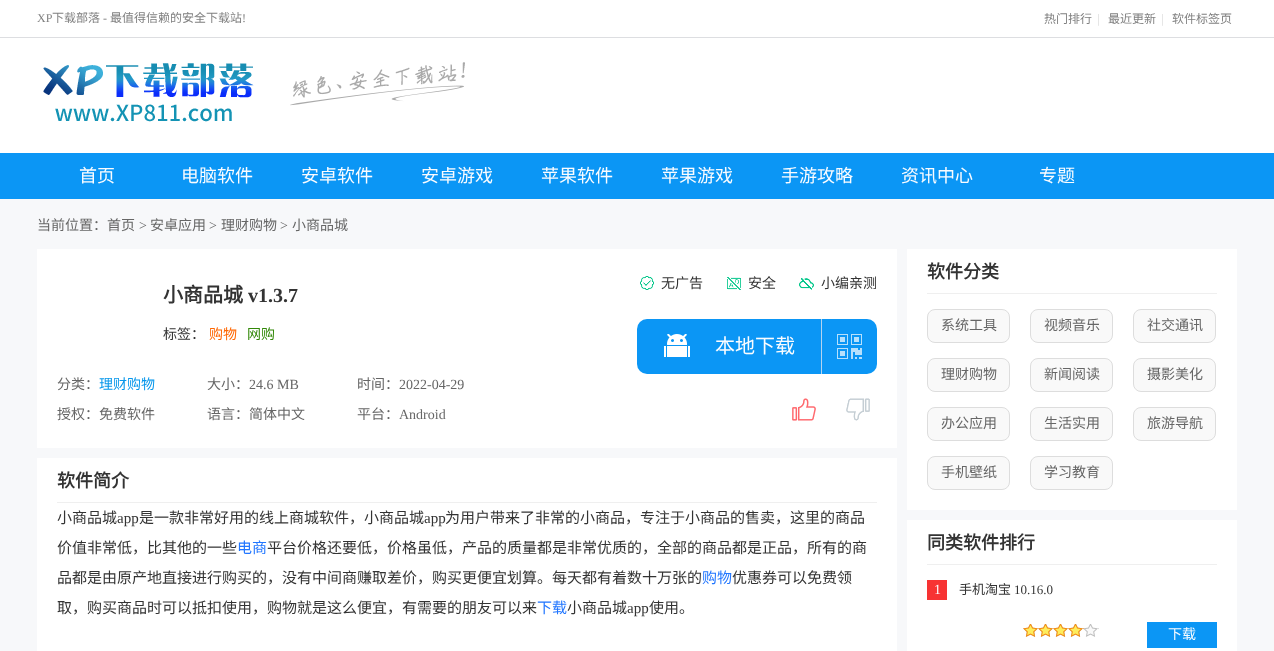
<?xml version="1.0" encoding="UTF-8"?>
<svg xmlns="http://www.w3.org/2000/svg" width="1274" height="651">
    <rect width="100%" height="100%" fill="#F7F8FA"/>
    <rect x="0" y="0" width="1274" height="153" fill="#FFFFFF"/>
    <rect x="0" y="37" width="1274" height="1" fill="#DDDEE1"/>
    <text x="37" y="22" font-family="Liberation Serif" font-size="12" fill="#808080">XP</text>
    <text x="52" y="22" font-family="Noto Sans CJK SC" font-size="12" fill="#808080">下载部落</text>
    <text x="103" y="22" font-family="Liberation Serif" font-size="12" fill="#808080">-</text>
    <text x="110" y="22" font-family="Noto Sans CJK SC" font-size="12" fill="#808080">最值得信赖的安全下载站</text>
    <text x="242" y="22" font-family="Liberation Serif" font-size="12" fill="#808080">!</text>
    <text x="1044" y="23" font-family="Noto Sans CJK SC" font-size="12" fill="#808080">热门排行</text>
    <text x="1097" y="23" font-family="Liberation Serif" font-size="13" fill="#D9D9D9">|</text>
    <text x="1108" y="23" font-family="Noto Sans CJK SC" font-size="12" fill="#808080">最近更新</text>
    <text x="1161" y="23" font-family="Liberation Serif" font-size="13" fill="#D9D9D9">|</text>
    <text x="1172" y="23" font-family="Noto Sans CJK SC" font-size="12" fill="#808080">软件标签页</text>
    <image x="43" y="63" width="211" height="59" href="img_01.png"/>
    <image x="290" y="62" width="175" height="44" href="img_02.png"/>
    <rect x="0" y="153" width="1274" height="46" fill="#0B96F5"/>
    <text x="79" y="182" font-family="Noto Sans CJK SC" font-size="18" fill="#FAFCFF">首页</text>
    <text x="181" y="182" font-family="Noto Sans CJK SC" font-size="18" fill="#FAFCFF">电脑软件</text>
    <text x="301" y="182" font-family="Noto Sans CJK SC" font-size="18" fill="#FAFCFF">安卓软件</text>
    <text x="421" y="182" font-family="Noto Sans CJK SC" font-size="18" fill="#FAFCFF">安卓游戏</text>
    <text x="541" y="182" font-family="Noto Sans CJK SC" font-size="18" fill="#FAFCFF">苹果软件</text>
    <text x="661" y="182" font-family="Noto Sans CJK SC" font-size="18" fill="#FAFCFF">苹果游戏</text>
    <text x="781" y="182" font-family="Noto Sans CJK SC" font-size="18" fill="#FAFCFF">手游攻略</text>
    <text x="901" y="182" font-family="Noto Sans CJK SC" font-size="18" fill="#FAFCFF">资讯中心</text>
    <text x="1039" y="182" font-family="Noto Sans CJK SC" font-size="18" fill="#FAFCFF">专题</text>
    <text x="37" y="230" font-family="Noto Sans CJK SC" font-size="14" fill="#666666">当前位置：首页</text>
    <text x="139" y="230" font-family="Liberation Serif" font-size="14" fill="#666666">&gt;</text>
    <text x="150" y="230" font-family="Noto Sans CJK SC" font-size="14" fill="#666666">安卓应用</text>
    <text x="209" y="230" font-family="Liberation Serif" font-size="14" fill="#666666">&gt;</text>
    <text x="221" y="230" font-family="Noto Sans CJK SC" font-size="14" fill="#666666">理财购物</text>
    <text x="280" y="230" font-family="Liberation Serif" font-size="14" fill="#666666">&gt;</text>
    <text x="292" y="230" font-family="Noto Sans CJK SC" font-size="14" fill="#666666">小商品城</text>
    <rect x="37" y="249" width="860" height="199" fill="#FFFFFF"/>
    <text x="163" y="302" font-family="Noto Sans CJK SC" font-size="20" font-weight="700" fill="#333333">小商品城</text>
    <text x="248" y="302" font-family="Liberation Serif" font-size="20" font-weight="700" fill="#333333">v1.3.7</text>
    <text x="163" y="339" font-family="Noto Sans CJK SC" font-size="14" fill="#333333">标签：</text>
    <text x="209" y="339" font-family="Noto Sans CJK SC" font-size="14" fill="#FF6600">购物</text>
    <text x="247" y="339" font-family="Noto Sans CJK SC" font-size="14" fill="#328808">网购</text>
    <text x="57" y="389" font-family="Noto Sans CJK SC" font-size="14" fill="#666666">分类：</text>
    <text x="99" y="389" font-family="Noto Sans CJK SC" font-size="14" fill="#0797EB">理财购物</text>
    <text x="207" y="389" font-family="Noto Sans CJK SC" font-size="14" fill="#666666">大小：</text>
    <text x="249" y="389" font-family="Liberation Serif" font-size="14" fill="#666666">24.6 MB</text>
    <text x="357" y="389" font-family="Noto Sans CJK SC" font-size="14" fill="#666666">时间：</text>
    <text x="399" y="389" font-family="Liberation Serif" font-size="14" fill="#666666">2022-04-29</text>
    <text x="57" y="419" font-family="Noto Sans CJK SC" font-size="14" fill="#666666">授权：免费软件</text>
    <text x="207" y="419" font-family="Noto Sans CJK SC" font-size="14" fill="#666666">语言：简体中文</text>
    <text x="357" y="419" font-family="Noto Sans CJK SC" font-size="14" fill="#666666">平台：</text>
    <text x="399" y="419" font-family="Liberation Serif" font-size="14" fill="#666666">Android</text>
    <image x="640" y="276" width="14" height="14" href="img_03.png"/>
    <text x="661" y="288" font-family="Noto Sans CJK SC" font-size="14" fill="#333333">无广告</text>
    <image x="727" y="277" width="14" height="13" href="img_04.png"/>
    <text x="748" y="288" font-family="Noto Sans CJK SC" font-size="14" fill="#333333">安全</text>
    <image x="799" y="278" width="15" height="12" href="img_05.png"/>
    <text x="821" y="288" font-family="Noto Sans CJK SC" font-size="14" fill="#333333">小编亲测</text>
    <rect x="637" y="319" width="240" height="55" rx="10" fill="#0B96F5"/>
    <image x="664" y="334" width="26" height="23" href="img_06.png"/>
    <text x="715" y="353" font-family="Noto Sans CJK SC" font-size="20" fill="#FAFCFF">本地下载</text>
    <rect x="821" y="319" width="1" height="55" fill="#B4D3EF"/>
    <image x="837" y="334" width="25" height="25" href="img_07.png"/>
    <image x="792" y="398" width="24" height="23" href="img_08.png"/>
    <image x="846" y="398" width="24" height="23" href="img_09.png"/>
    <rect x="37" y="458" width="860" height="193" fill="#FFFFFF"/>
    <rect x="57" y="502" width="820" height="1" fill="#EFEFEF"/>
    <text x="57" y="487" font-family="Noto Sans CJK SC" font-size="18" font-weight="700" fill="#333333">软件简介</text>
    <text x="57" y="523" font-family="Noto Sans CJK SC" font-size="15" fill="#333333">小商品城</text>
    <text x="117" y="523" font-family="Liberation Serif" font-size="15" fill="#333333">app</text>
    <text x="139" y="523" font-family="Noto Sans CJK SC" font-size="15" fill="#333333">是一款非常好用的线上商城软件，小商品城</text>
    <text x="424" y="523" font-family="Liberation Serif" font-size="15" fill="#333333">app</text>
    <text x="445" y="523" font-family="Noto Sans CJK SC" font-size="15" fill="#333333">为用户带来了非常的小商品，专注于小商品的售卖，这里的商品</text>
    <text x="57" y="553" font-family="Noto Sans CJK SC" font-size="15" fill="#333333">价值非常低，比其他的一些</text>
    <text x="237" y="553" font-family="Noto Sans CJK SC" font-size="15" fill="#2176FF">电商</text>
    <text x="267" y="553" font-family="Noto Sans CJK SC" font-size="15" fill="#333333">平台价格还要低，价格虽低，产品的质量都是非常优质的，全部的商品都是正品，所有的商</text>
    <text x="57" y="583" font-family="Noto Sans CJK SC" font-size="15" fill="#333333">品都是由原产地直接进行购买的，没有中间商赚取差价，购买更便宜划算。每天都有着数十万张的</text>
    <text x="702" y="583" font-family="Noto Sans CJK SC" font-size="15" fill="#2176FF">购物</text>
    <text x="732" y="583" font-family="Noto Sans CJK SC" font-size="15" fill="#333333">优惠券可以免费领</text>
    <text x="57" y="613" font-family="Noto Sans CJK SC" font-size="15" fill="#333333">取，购买商品时可以抵扣使用，购物就是这么便宜，有需要的朋友可以来</text>
    <text x="537" y="613" font-family="Noto Sans CJK SC" font-size="15" fill="#2176FF">下载</text>
    <text x="567" y="613" font-family="Noto Sans CJK SC" font-size="15" fill="#333333">小商品城</text>
    <text x="627" y="613" font-family="Liberation Serif" font-size="15" fill="#333333">app</text>
    <text x="649" y="613" font-family="Noto Sans CJK SC" font-size="15" fill="#333333">使用。</text>
    <rect x="907" y="249" width="330" height="261" fill="#FFFFFF"/>
    <rect x="927" y="293" width="290" height="1" fill="#EFEFEF"/>
    <text x="927" y="278" font-family="Noto Sans CJK SC" font-size="18" font-weight="700" fill="#333333">软件分类</text>
    <rect x="927.5" y="309.5" width="82" height="33" rx="7.5" fill="#F9F9F9" stroke="#DDDDDD"/>
    <text x="941" y="330" font-family="Noto Sans CJK SC" font-size="14" fill="#666666">系统工具</text>
    <rect x="1030.5" y="309.5" width="82" height="33" rx="7.5" fill="#F9F9F9" stroke="#DDDDDD"/>
    <text x="1044" y="330" font-family="Noto Sans CJK SC" font-size="14" fill="#666666">视频音乐</text>
    <rect x="1133.5" y="309.5" width="82" height="33" rx="7.5" fill="#F9F9F9" stroke="#DDDDDD"/>
    <text x="1147" y="330" font-family="Noto Sans CJK SC" font-size="14" fill="#666666">社交通讯</text>
    <rect x="927.5" y="358.5" width="82" height="33" rx="7.5" fill="#F9F9F9" stroke="#DDDDDD"/>
    <text x="941" y="379" font-family="Noto Sans CJK SC" font-size="14" fill="#666666">理财购物</text>
    <rect x="1030.5" y="358.5" width="82" height="33" rx="7.5" fill="#F9F9F9" stroke="#DDDDDD"/>
    <text x="1044" y="379" font-family="Noto Sans CJK SC" font-size="14" fill="#666666">新闻阅读</text>
    <rect x="1133.5" y="358.5" width="82" height="33" rx="7.5" fill="#F9F9F9" stroke="#DDDDDD"/>
    <text x="1147" y="379" font-family="Noto Sans CJK SC" font-size="14" fill="#666666">摄影美化</text>
    <rect x="927.5" y="407.5" width="82" height="33" rx="7.5" fill="#F9F9F9" stroke="#DDDDDD"/>
    <text x="941" y="428" font-family="Noto Sans CJK SC" font-size="14" fill="#666666">办公应用</text>
    <rect x="1030.5" y="407.5" width="82" height="33" rx="7.5" fill="#F9F9F9" stroke="#DDDDDD"/>
    <text x="1044" y="428" font-family="Noto Sans CJK SC" font-size="14" fill="#666666">生活实用</text>
    <rect x="1133.5" y="407.5" width="82" height="33" rx="7.5" fill="#F9F9F9" stroke="#DDDDDD"/>
    <text x="1147" y="428" font-family="Noto Sans CJK SC" font-size="14" fill="#666666">旅游导航</text>
    <rect x="927.5" y="456.5" width="82" height="33" rx="7.5" fill="#F9F9F9" stroke="#DDDDDD"/>
    <text x="941" y="477" font-family="Noto Sans CJK SC" font-size="14" fill="#666666">手机壁纸</text>
    <rect x="1030.5" y="456.5" width="82" height="33" rx="7.5" fill="#F9F9F9" stroke="#DDDDDD"/>
    <text x="1044" y="477" font-family="Noto Sans CJK SC" font-size="14" fill="#666666">学习教育</text>
    <rect x="907" y="520" width="330" height="131" fill="#FFFFFF"/>
    <rect x="927" y="564" width="290" height="1" fill="#EFEFEF"/>
    <text x="927" y="549" font-family="Noto Sans CJK SC" font-size="18" font-weight="700" fill="#333333">同类软件排行</text>
    <rect x="927" y="580" width="20" height="20" fill="#F73333"/>
    <text x="934" y="594" font-family="Liberation Serif" font-size="14" fill="#FAFCFF">1</text>
    <text x="959" y="594" font-family="Noto Sans CJK SC" font-size="13" fill="#333333">手机淘宝</text>
    <text x="1014" y="594" font-family="Liberation Serif" font-size="13" fill="#333333">10.16.0</text>
    <image x="1023" y="624" width="76" height="13" href="img_10.png"/>
    <image x="1023" y="624" width="61" height="13" href="img_11.png"/>
    <rect x="1147" y="622" width="70" height="26" fill="#0B96F5"/>
    <text x="1168" y="639" font-family="Noto Sans CJK SC" font-size="14" fill="#FAFCFF">下载</text>
</svg>
